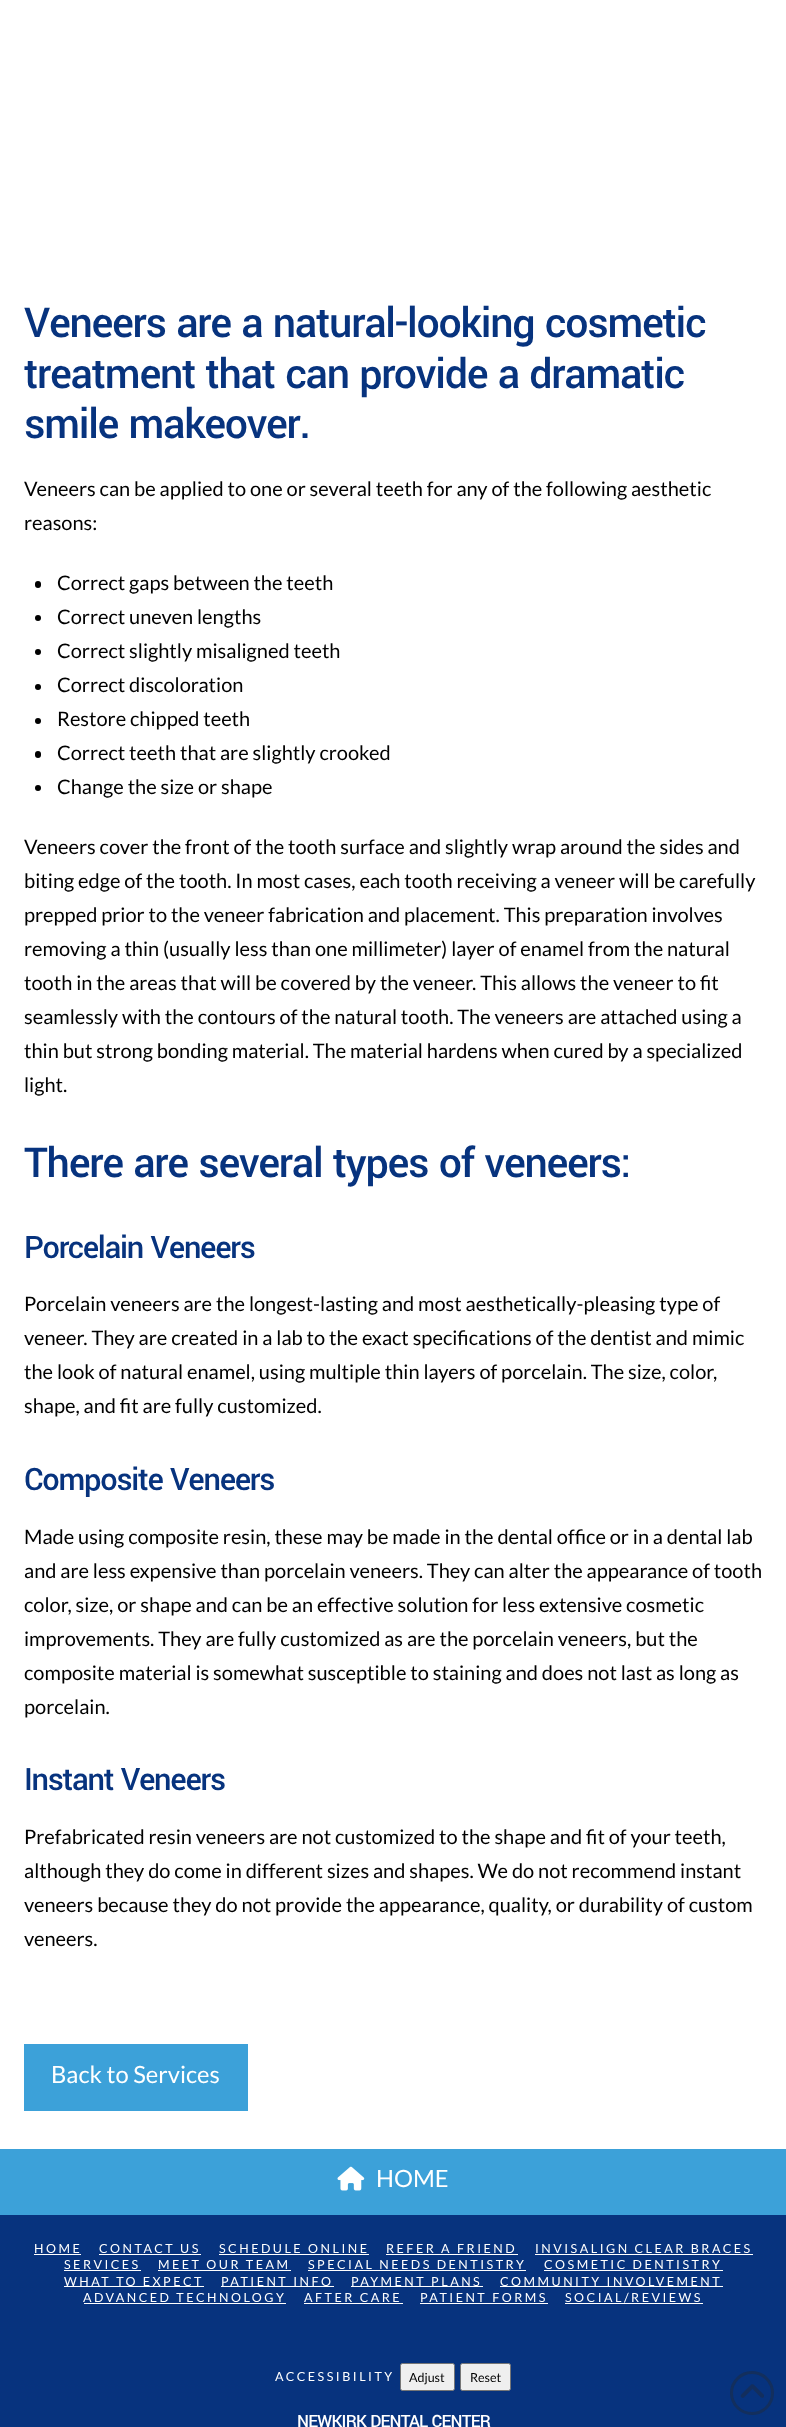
<?xml version="1.0" encoding="UTF-8"?>
<svg xmlns="http://www.w3.org/2000/svg" width="786" height="2427">
    <rect width="100%" height="100%" fill="#FFFFFF"/>
    <text font-family="Yantramanav" font-size="45.75" font-weight="500" letter-spacing="-1.25" fill="#07337E">
        <tspan x="24" y="337">Veneers are a natural-looking cosmetic</tspan>
        <tspan x="24" y="388">treatment that can provide a dramatic</tspan>
        <tspan x="24" y="438">smile makeover.</tspan>
    </text>
    <text font-family="Lato" font-size="20" fill="#000000">
        <tspan x="24" y="496">Veneers can be applied to one or several teeth for any of the following aesthetic</tspan>
        <tspan x="24" y="530">reasons:</tspan>
    </text>
    <rect x="35" y="581" width="6" height="7" rx="3" fill="#000000"/>
    <text x="57" y="590" font-family="Lato" font-size="20" fill="#000000">Correct gaps between the teeth</text>
    <circle cx="38" cy="618" r="3" fill="#000000"/>
    <text x="57" y="624" font-family="Lato" font-size="20" fill="#000000">Correct uneven lengths</text>
    <circle cx="38" cy="652" r="3" fill="#000000"/>
    <text x="57" y="658" font-family="Lato" font-size="20" fill="#000000">Correct slightly misaligned teeth</text>
    <circle cx="38" cy="687" r="3" fill="#000000"/>
    <text x="57" y="692" font-family="Lato" font-size="20" fill="#000000">Correct discoloration</text>
    <circle cx="38" cy="721" r="3" fill="#000000"/>
    <text x="57" y="726" font-family="Lato" font-size="20" fill="#000000">Restore chipped teeth</text>
    <rect x="35" y="751" width="6" height="7" rx="3" fill="#000000"/>
    <text x="57" y="760" font-family="Lato" font-size="20" fill="#000000">Correct teeth that are slightly crooked</text>
    <circle cx="38" cy="788" r="3" fill="#000000"/>
    <text x="57" y="794" font-family="Lato" font-size="20" fill="#000000">Change the size or shape</text>
    <text font-family="Lato" font-size="20" fill="#000000">
        <tspan x="24" y="854">Veneers cover the front of the tooth surface and slightly wrap around the sides and</tspan>
        <tspan x="24" y="888">biting edge of the tooth. In most cases, each tooth receiving a veneer will be carefully</tspan>
        <tspan x="24" y="922">prepped prior to the veneer fabrication and placement. This preparation involves</tspan>
        <tspan x="24" y="956">removing a thin (usually less than one millimeter) layer of enamel from the natural</tspan>
        <tspan x="24" y="990">tooth in the areas that will be covered by the veneer. This allows the veneer to fit</tspan>
        <tspan x="24" y="1024">seamlessly with the contours of the natural tooth. The veneers are attached using a</tspan>
        <tspan x="24" y="1058">thin but strong bonding material. The material hardens when cured by a specialized</tspan>
        <tspan x="24" y="1092">light.</tspan>
    </text>
    <text x="24" y="1177" font-family="Yantramanav" font-size="45.75" font-weight="500" letter-spacing="-1.25" fill="#07337E">There are several types of veneers:</text>
    <text x="24" y="1258" font-family="Yantramanav" font-size="34.25" font-weight="500" letter-spacing="-1.25" fill="#07337E">Porcelain Veneers</text>
    <text font-family="Lato" font-size="20" fill="#000000">
        <tspan x="24" y="1311">Porcelain veneers are the longest-lasting and most aesthetically-pleasing type of</tspan>
        <tspan x="24" y="1345">veneer. They are created in a lab to the exact specifications of the dentist and mimic</tspan>
        <tspan x="24" y="1379">the look of natural enamel, using multiple thin layers of porcelain. The size, color,</tspan>
        <tspan x="24" y="1413">shape, and fit are fully customized.</tspan>
    </text>
    <text x="24" y="1490" font-family="Yantramanav" font-size="34.25" font-weight="500" letter-spacing="-1.25" fill="#07337E">Composite Veneers</text>
    <text font-family="Lato" font-size="20" fill="#000000">
        <tspan x="24" y="1544">Made using composite resin, these may be made in the dental office or in a dental lab</tspan>
        <tspan x="24" y="1578">and are less expensive than porcelain veneers. They can alter the appearance of tooth</tspan>
        <tspan x="24" y="1612">color, size, or shape and can be an effective solution for less extensive cosmetic</tspan>
        <tspan x="24" y="1646">improvements. They are fully customized as are the porcelain veneers, but the</tspan>
        <tspan x="24" y="1680">composite material is somewhat susceptible to staining and does not last as long as</tspan>
        <tspan x="24" y="1714">porcelain.</tspan>
    </text>
    <text x="24" y="1790" font-family="Yantramanav" font-size="34.25" font-weight="500" letter-spacing="-1.25" fill="#07337E">Instant Veneers</text>
    <text font-family="Lato" font-size="20" fill="#000000">
        <tspan x="24" y="1844">Prefabricated resin veneers are not customized to the shape and fit of your teeth,</tspan>
        <tspan x="24" y="1878">although they do come in different sizes and shapes. We do not recommend instant</tspan>
        <tspan x="24" y="1912">veneers because they do not provide the appearance, quality, or durability of custom</tspan>
        <tspan x="24" y="1946">veneers.</tspan>
    </text>
    <rect x="24" y="2044" width="224" height="67" fill="#3CA1D9"/>
    <text x="51" y="2083" font-family="Lato" font-size="23.75" fill="#FFFFFF">Back to Services</text>
    <rect x="0" y="2149" width="786" height="66" fill="#3CA1D9"/>
    <image x="337" y="2166" width="28" height="25" href="img_01.png"/>
    <text x="376" y="2187" font-family="Lato" font-size="23.75" fill="#FFFFFF">HOME</text>
    <rect x="0" y="2215" width="786" height="212" fill="#07337E"/>
    <text x="34" y="2253" font-family="Lato" font-size="12.5" letter-spacing="2.5" fill="#FFFFFF">HOME</text>
    <rect x="34" y="2254" width="47" height="1" fill="#FFFFFF"/>
    <text x="99" y="2253" font-family="Lato" font-size="12.5" letter-spacing="2.5" fill="#FFFFFF">CONTACT US</text>
    <rect x="99" y="2254" width="102" height="1" fill="#FFFFFF"/>
    <text x="219" y="2253" font-family="Lato" font-size="12.5" letter-spacing="2.5" fill="#FFFFFF">SCHEDULE ONLINE</text>
    <rect x="219" y="2254" width="150" height="1" fill="#FFFFFF"/>
    <text x="386" y="2253" font-family="Lato" font-size="12.5" letter-spacing="2.5" fill="#FFFFFF">REFER A FRIEND</text>
    <rect x="386" y="2254" width="132" height="1" fill="#FFFFFF"/>
    <text x="535" y="2253" font-family="Lato" font-size="12.5" letter-spacing="2.5" fill="#FFFFFF">INVISALIGN CLEAR BRACES</text>
    <rect x="535" y="2254" width="218" height="1" fill="#FFFFFF"/>
    <text x="64" y="2269" font-family="Lato" font-size="12.5" letter-spacing="2.5" fill="#FFFFFF">SERVICES</text>
    <rect x="64" y="2270" width="77" height="1" fill="#FFFFFF"/>
    <text x="158" y="2269" font-family="Lato" font-size="12.5" letter-spacing="2.5" fill="#FFFFFF">MEET OUR TEAM</text>
    <rect x="158" y="2270" width="133" height="1" fill="#FFFFFF"/>
    <text x="308" y="2269" font-family="Lato" font-size="12.5" letter-spacing="2.5" fill="#FFFFFF">SPECIAL NEEDS DENTISTRY</text>
    <rect x="308" y="2270" width="218" height="1" fill="#FFFFFF"/>
    <text x="544" y="2269" font-family="Lato" font-size="12.5" letter-spacing="2.5" fill="#FFFFFF">COSMETIC DENTISTRY</text>
    <rect x="544" y="2270" width="179" height="1" fill="#FFFFFF"/>
    <rect x="64" y="2286" width="140" height="1" fill="#FFFFFF"/>
    <text x="64" y="2286" font-family="Lato" font-size="12.5" letter-spacing="2.5" fill="#FFFFFF">WHAT TO EXPECT</text>
    <rect x="221" y="2286" width="113" height="1" fill="#FFFFFF"/>
    <text x="221" y="2286" font-family="Lato" font-size="12.5" letter-spacing="2.5" fill="#FFFFFF">PATIENT INFO</text>
    <rect x="351" y="2286" width="132" height="1" fill="#FFFFFF"/>
    <text x="351" y="2286" font-family="Lato" font-size="12.5" letter-spacing="2.5" fill="#FFFFFF">PAYMENT PLANS</text>
    <rect x="500" y="2286" width="223" height="1" fill="#FFFFFF"/>
    <text x="500" y="2286" font-family="Lato" font-size="12.5" letter-spacing="2.5" fill="#FFFFFF">COMMUNITY INVOLVEMENT</text>
    <text x="83" y="2302" font-family="Lato" font-size="12.5" letter-spacing="2.5" fill="#FFFFFF">ADVANCED TECHNOLOGY</text>
    <rect x="84" y="2303" width="202" height="1" fill="#FFFFFF"/>
    <text x="304" y="2302" font-family="Lato" font-size="12.5" letter-spacing="2.5" fill="#FFFFFF">AFTER CARE</text>
    <rect x="304" y="2303" width="99" height="1" fill="#FFFFFF"/>
    <text x="420" y="2302" font-family="Lato" font-size="12.5" letter-spacing="2.5" fill="#FFFFFF">PATIENT FORMS</text>
    <rect x="420" y="2303" width="128" height="1" fill="#FFFFFF"/>
    <text x="565" y="2302" font-family="Lato" font-size="12.5" letter-spacing="2.5" fill="#FFFFFF">SOCIAL/REVIEWS</text>
    <rect x="565" y="2303" width="138" height="1" fill="#FFFFFF"/>
    <text x="275" y="2381" font-family="Lato" font-size="12.5" letter-spacing="2.5" fill="#FFFFFF">ACCESSIBILITY</text>
    <rect x="400.5" y="2363.5" width="54" height="27" rx="2" fill="#EFEFEF" stroke="#767676"/>
    <text x="409" y="2382" font-family="Lato" font-size="12.5" fill="#000000">Adjust</text>
    <rect x="460.5" y="2363.5" width="50" height="27" rx="2" fill="#EFEFEF" stroke="#767676"/>
    <text x="470" y="2382" font-family="Lato" font-size="12.5" fill="#000000">Reset</text>
    <text x="297" y="2427" font-family="Yantramanav" font-size="18.75" font-weight="500" letter-spacing="-0.75" fill="#FFFFFF">NEWKIRK DENTAL CENTER</text>
    <circle cx="752" cy="2393" r="20.5" fill="none" stroke="#132F5D" stroke-width="3"/>
    <image x="740" y="2384" width="24" height="14" href="img_02.png"/>
</svg>
